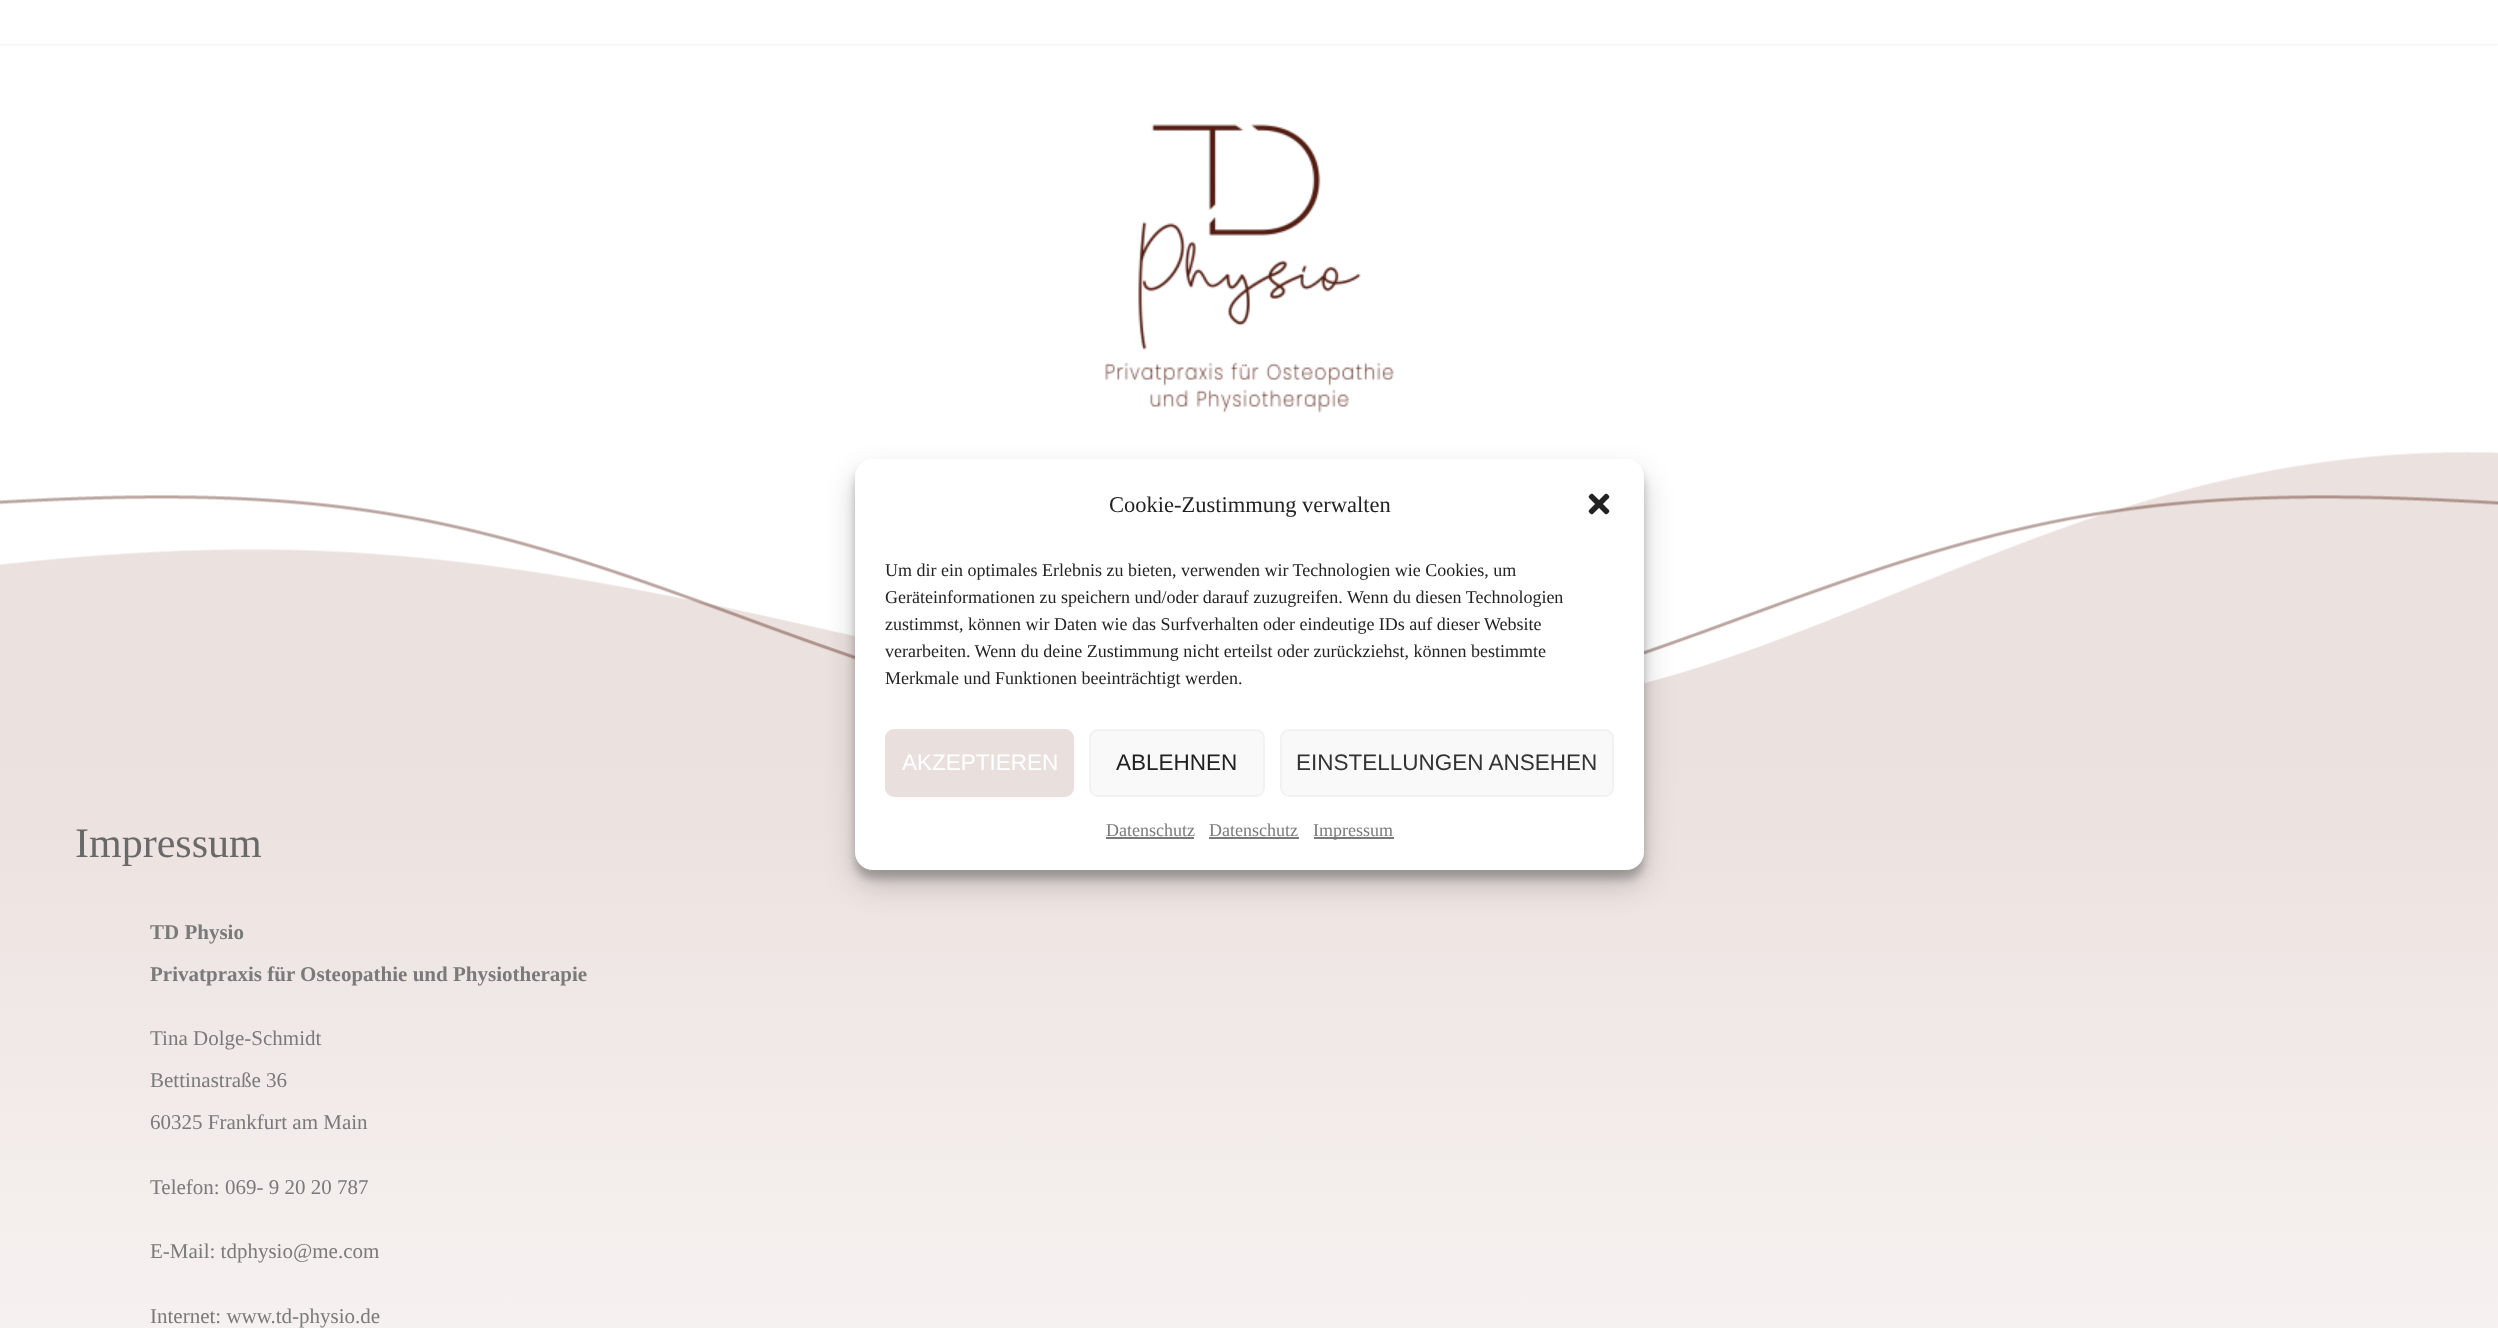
<?xml version="1.0" encoding="UTF-8"?>
<svg xmlns="http://www.w3.org/2000/svg" width="2498" height="1328">
    <defs>
        <linearGradient id="g1" gradientUnits="userSpaceOnUse" x1="1250" y1="760" x2="1250" y2="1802"><stop offset="0" stop-color="#EBE1DE"/><stop offset="1" stop-color="#FFFFFF"/></linearGradient>
        <filter id="blur1" x="-50%" y="-200%" width="200%" height="500%"><feGaussianBlur stdDeviation="4.5"/></filter>
        <filter id="blur2" x="-50%" y="-200%" width="200%" height="500%"><feGaussianBlur stdDeviation="15"/></filter>
        <filter id="blur3" x="-50%" y="-200%" width="200%" height="500%"><feGaussianBlur stdDeviation="1.5"/></filter>
    </defs>
    <rect width="100%" height="100%" fill="#FFFFFF"/>
    <rect x="0" y="742" width="2498" height="19" fill="#EBE1DE"/>
    <image x="0" y="440" width="2498" height="302" href="img_03.png"/>
    <rect x="0" y="761" width="2498" height="567" fill="url(#g1)"/>
    <rect x="855" y="468" width="789" height="411" rx="18" fill="#000000" fill-opacity="0.23" filter="url(#blur1)"/>
    <rect x="855" y="474" width="789" height="411" rx="18" fill="#000000" fill-opacity="0.19" filter="url(#blur2)"/>
    <rect x="855" y="459" width="789" height="411" rx="18" fill="#FFFFFF"/>
    <text x="1109" y="512" font-family="Liberation Serif" font-size="22.5" fill="#222222">Cookie-Zustimmung verwalten</text>
    <image x="1588" y="493" width="22" height="22" href="img_01.png"/>
    <text font-family="Liberation Serif" font-size="18" fill="#222222">
        <tspan x="885" y="576">Um dir ein optimales Erlebnis zu bieten, verwenden wir Technologien wie Cookies, um</tspan>
        <tspan x="885" y="603">Geräteinformationen zu speichern und/oder darauf zuzugreifen. Wenn du diesen Technologien</tspan>
        <tspan x="885" y="630">zustimmst, können wir Daten wie das Surfverhalten oder eindeutige IDs auf dieser Website</tspan>
        <tspan x="885" y="657">verarbeiten. Wenn du deine Zustimmung nicht erteilst oder zurückziehst, können bestimmte</tspan>
        <tspan x="885" y="684">Merkmale und Funktionen beeinträchtigt werden.</tspan>
    </text>
    <rect x="886" y="730" width="187" height="66" rx="8" fill="#E9E0DE" stroke="#E9E0DE" stroke-width="2"/>
    <text x="902" y="770" font-family="Liberation Sans" font-size="22.5" fill="#FFFFFF">AKZEPTIEREN</text>
    <rect x="1090" y="730" width="174" height="66" rx="8" fill="#F9F9F9" stroke="#F2F2F2" stroke-width="2"/>
    <text x="1116" y="770" font-family="Liberation Sans" font-size="22.5" fill="#222222">ABLEHNEN</text>
    <rect x="1281" y="730" width="332" height="66" rx="8" fill="#F9F9F9" stroke="#F2F2F2" stroke-width="2"/>
    <text x="1296" y="770" font-family="Liberation Sans" font-size="22.5" fill="#333333">EINSTELLUNGEN ANSEHEN</text>
    <text x="1106" y="836" font-family="Liberation Serif" font-size="18" fill="#7A7A7A">Datenschutz</text>
    <rect x="1106" y="837" width="88" height="2" fill="#7A7A7A"/>
    <text x="1209" y="836" font-family="Liberation Serif" font-size="18" fill="#7A7A7A">Datenschutz</text>
    <rect x="1209" y="837" width="90" height="2" fill="#7A7A7A"/>
    <rect x="1314" y="837" width="80" height="2" fill="#7A7A7A"/>
    <text x="1313" y="836" font-family="Liberation Serif" font-size="18" fill="#7A7A7A">Impressum</text>
    <rect x="0" y="-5" width="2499" height="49" fill="#E3E3E3" filter="url(#blur3)"/>
    <rect x="0" y="0" width="2498" height="44" fill="#FFFFFF"/>
    <image x="1105" y="124" width="289" height="289" href="img_02.png"/>
    <text x="75" y="857" font-family="Liberation Serif" font-size="42" fill="#696969">Impressum</text>
    <text x="150" y="939" font-family="Liberation Serif" font-size="21" font-weight="700" fill="#7A7A7A">TD Physio</text>
    <text x="150" y="981" font-family="Liberation Serif" font-size="21" font-weight="700" fill="#7A7A7A">Privatpraxis für Osteopathie und Physiotherapie</text>
    <text x="150" y="1045" font-family="Liberation Serif" font-size="21" fill="#7A7A7A">Tina Dolge-Schmidt</text>
    <text x="150" y="1087" font-family="Liberation Serif" font-size="21" fill="#7A7A7A">Bettinastraße 36</text>
    <text x="150" y="1129" font-family="Liberation Serif" font-size="21" fill="#7A7A7A">60325 Frankfurt am Main</text>
    <text x="150" y="1194" font-family="Liberation Serif" font-size="21" fill="#7A7A7A">Telefon: 069- 9 20 20 787</text>
    <text x="150" y="1258" font-family="Liberation Serif" font-size="21" fill="#7A7A7A">E-Mail: tdphysio@me.com</text>
    <text x="150" y="1323" font-family="Liberation Serif" font-size="21" fill="#7A7A7A">Internet: www.td-physio.de</text>
</svg>
